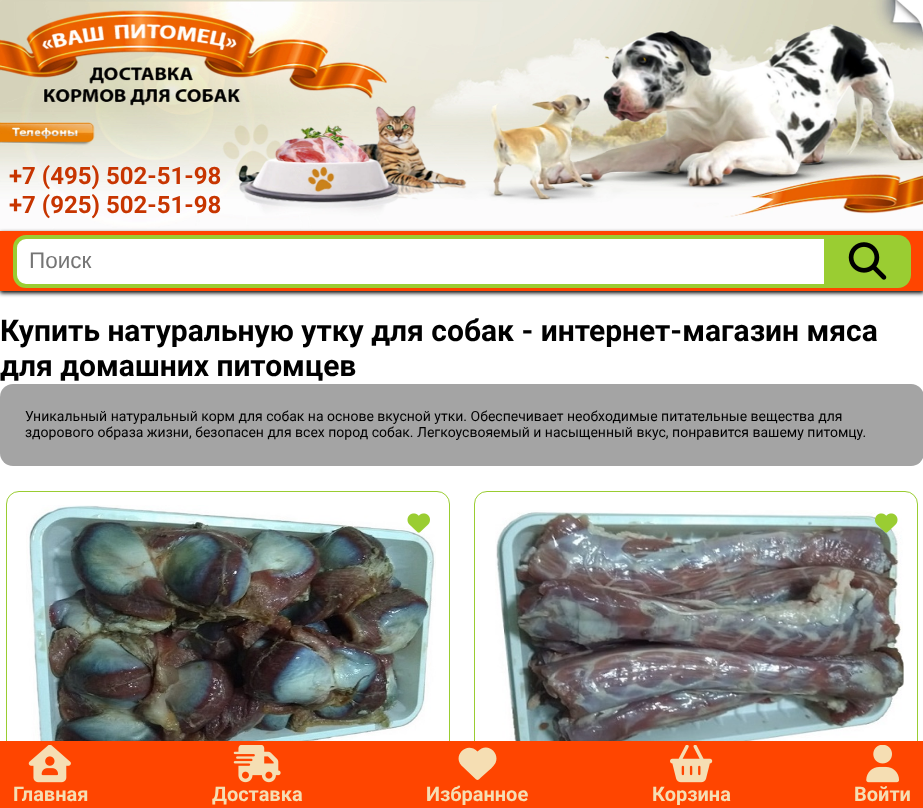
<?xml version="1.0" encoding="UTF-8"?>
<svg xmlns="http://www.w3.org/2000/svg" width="923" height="808">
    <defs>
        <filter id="blur1" x="-50%" y="-200%" width="200%" height="500%"><feGaussianBlur stdDeviation="2"/></filter>
    </defs>
    <rect width="100%" height="100%" fill="#FFFFFF"/>
    <image x="0" y="0" width="923" height="231" href="img_01.png"/>
    <text font-family="Roboto" font-size="24" font-weight="700" fill="#C73500">
        <tspan x="9" y="184">+7 (495) 502-51-98</tspan>
        <tspan x="9" y="213">+7 (925) 502-51-98</tspan>
    </text>
    <rect x="0" y="233" width="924" height="60" fill="#000000" filter="url(#blur1)"/>
    <rect x="0" y="231" width="923" height="60" fill="#FF4500"/>
    <path d="M 26 237 H 829 V 286 H 26 C 20 286 15 281 15 275 V 248 C 15 242 20 237 26 237 Z" fill="#FFFFFF" stroke="#9ACD32" stroke-width="4"/>
    <text x="29" y="268" font-family="Liberation Sans" font-size="22.5" fill="#757575">Поиск</text>
    <path d="M 824 235 H 898 C 905 235 911 241 911 248 V 275 C 911 282 905 288 898 288 H 824 Z" fill="#9ACD32"/>
    <image x="848" y="242" width="39" height="38" href="img_02.png"/>
    <text font-family="Roboto" font-size="30" font-weight="700" fill="#000000">
        <tspan x="0" y="341">Купить натуральную утку для собак - интернет-магазин мяса</tspan>
        <tspan x="0" y="376">для домашних питомцев</tspan>
    </text>
    <rect x="0" y="384" width="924" height="82" rx="13" fill="#A4A4A4"/>
    <text font-family="Roboto" font-size="14" fill="#000000">
        <tspan x="25" y="421">Уникальный натуральный корм для собак на основе вкусной утки. Обеспечивает необходимые питательные вещества для</tspan>
        <tspan x="25" y="437">здорового образа жизни, безопасен для всех пород собак. Легкоусвояемый и насыщенный вкус, понравится вашему питомцу.</tspan>
    </text>
    <rect x="6.5" y="491.5" width="443" height="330" rx="12.5" fill="none" stroke="#9ACD32"/>
    <image x="26" y="505" width="410" height="236" href="img_03.png"/>
    <image x="407" y="513" width="23" height="20" href="img_04.png"/>
    <rect x="474.5" y="491.5" width="443" height="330" rx="12.5" fill="none" stroke="#9ACD32"/>
    <image x="495" y="510" width="409" height="231" href="img_05.png"/>
    <image x="875" y="513" width="23" height="20" href="img_06.png"/>
    <rect x="0" y="741" width="923" height="67" fill="#FF4500"/>
    <image x="28" y="745" width="43" height="38" href="img_07.png"/>
    <text x="13" y="801" font-family="Roboto" font-size="20" font-weight="700" fill="#F5DEB3">Главная</text>
    <image x="233" y="745" width="48" height="38" href="img_08.png"/>
    <text x="212" y="801" font-family="Roboto" font-size="20" font-weight="700" fill="#F5DEB3">Доставка</text>
    <path d="M 462.5 766.5 L 473.5 777 C 477.5 781 477.5 781 481.5 777 L 486 773 C 489 770 493.5 767 495.5 763 C 499.5 754 490.5 744.5 481.5 748.5 C 480 749.5 478.5 750.5 477.5 751.5 C 466 740.5 451.5 757 462.5 766.5 Z" fill="#F5DEB3"/>
    <text x="426" y="801" font-family="Roboto" font-size="20" font-weight="700" fill="#F5DEB3">Избранное</text>
    <image x="670" y="745" width="43" height="38" href="img_09.png"/>
    <text x="652" y="801" font-family="Roboto" font-size="20" font-weight="700" fill="#F5DEB3">Корзина</text>
    <image x="866" y="745" width="33" height="38" href="img_10.png"/>
    <text x="854" y="801" font-family="Roboto" font-size="20" font-weight="700" fill="#F5DEB3">Войти</text>
</svg>
